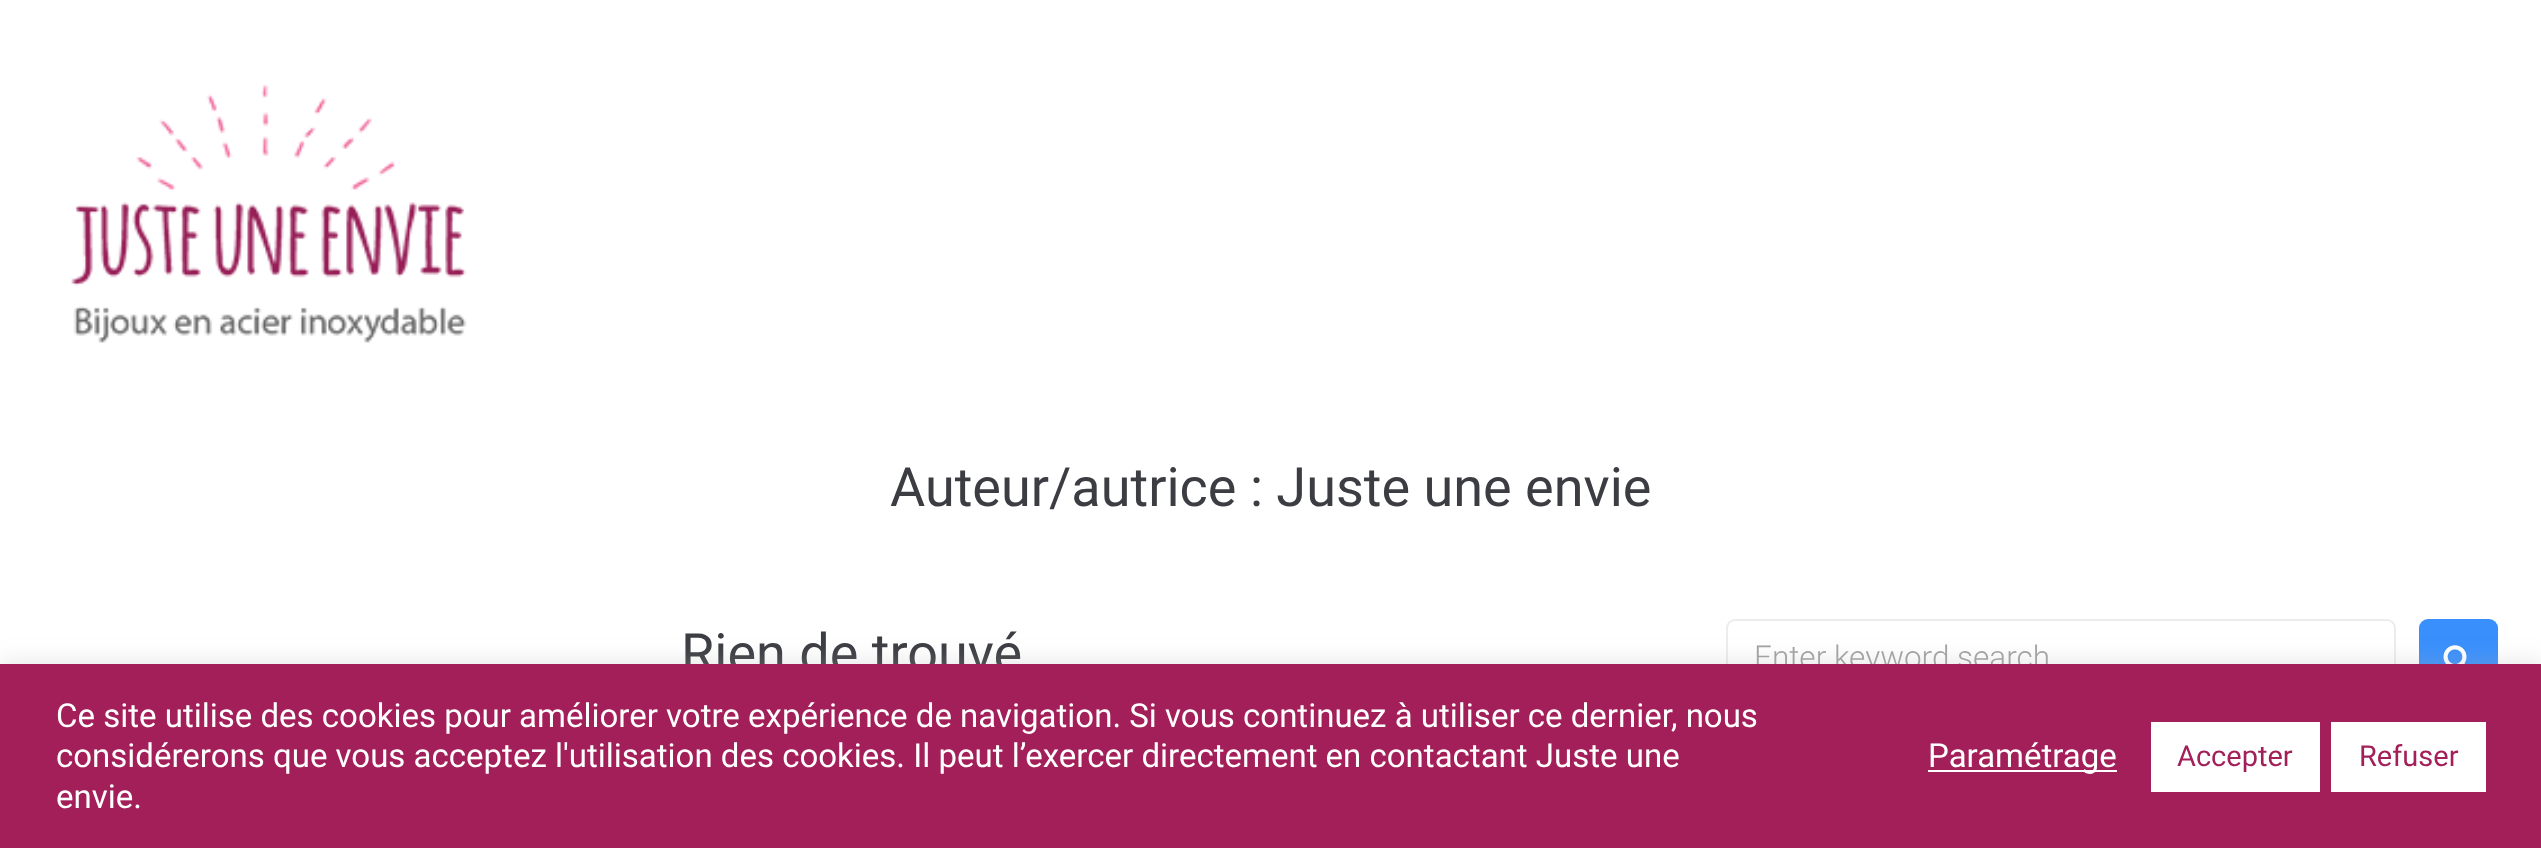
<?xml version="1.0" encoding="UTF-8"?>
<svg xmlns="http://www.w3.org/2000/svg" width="2541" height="848">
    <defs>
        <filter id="blur1" x="-50%" y="-200%" width="200%" height="500%"><feGaussianBlur stdDeviation="11"/></filter>
    </defs>
    <rect width="100%" height="100%" fill="#FFFFFF"/>
    <image x="71" y="85" width="396" height="258" href="img_01.png"/>
    <text x="890" y="506" font-family="Roboto" font-size="54" fill="#3B3D42">Auteur/autrice : Juste une envie</text>
    <text x="681" y="672" font-family="Roboto" font-size="54" fill="#3B3D42">Rien de trouvé</text>
    <rect x="1727" y="620" width="668" height="74" rx="8" fill="none" stroke="#EBECED" stroke-width="2"/>
    <text x="1754" y="668" font-family="Roboto" font-size="31.5" font-weight="300" fill="#A1A2A4">Enter keyword search</text>
    <rect x="2419" y="619" width="79" height="79" rx="9" fill="#398FFC"/>
    <image x="2443" y="645" width="24" height="19" href="img_02.png"/>
    <rect x="0" y="662" width="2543" height="184" fill="#ACABAB" fill-opacity="0.3" filter="url(#blur1)"/>
    <rect x="0" y="664" width="2541" height="184" fill="#A31F59"/>
    <text font-family="Roboto" font-size="33" fill="#FFFFFF">
        <tspan x="56" y="727">Ce site utilise des cookies pour améliorer votre expérience de navigation. Si vous continuez à utiliser ce dernier, nous</tspan>
        <tspan x="56" y="767">considérerons que vous acceptez l'utilisation des cookies. Il peut l’exercer directement en contactant Juste une</tspan>
        <tspan x="56" y="808">envie.</tspan>
    </text>
    <rect x="1928" y="770" width="189" height="2" fill="#FFFFFF"/>
    <text x="1928" y="767" font-family="Roboto" font-size="33" fill="#FFFFFF">Paramétrage</text>
    <rect x="2151" y="722" width="169" height="70" fill="#FFFFFF"/>
    <text x="2177" y="766" font-family="Roboto" font-size="29" fill="#A31F59">Accepter</text>
    <rect x="2331" y="722" width="155" height="70" fill="#FFFFFF"/>
    <text x="2359" y="766" font-family="Roboto" font-size="29" fill="#A31F59">Refuser</text>
</svg>
